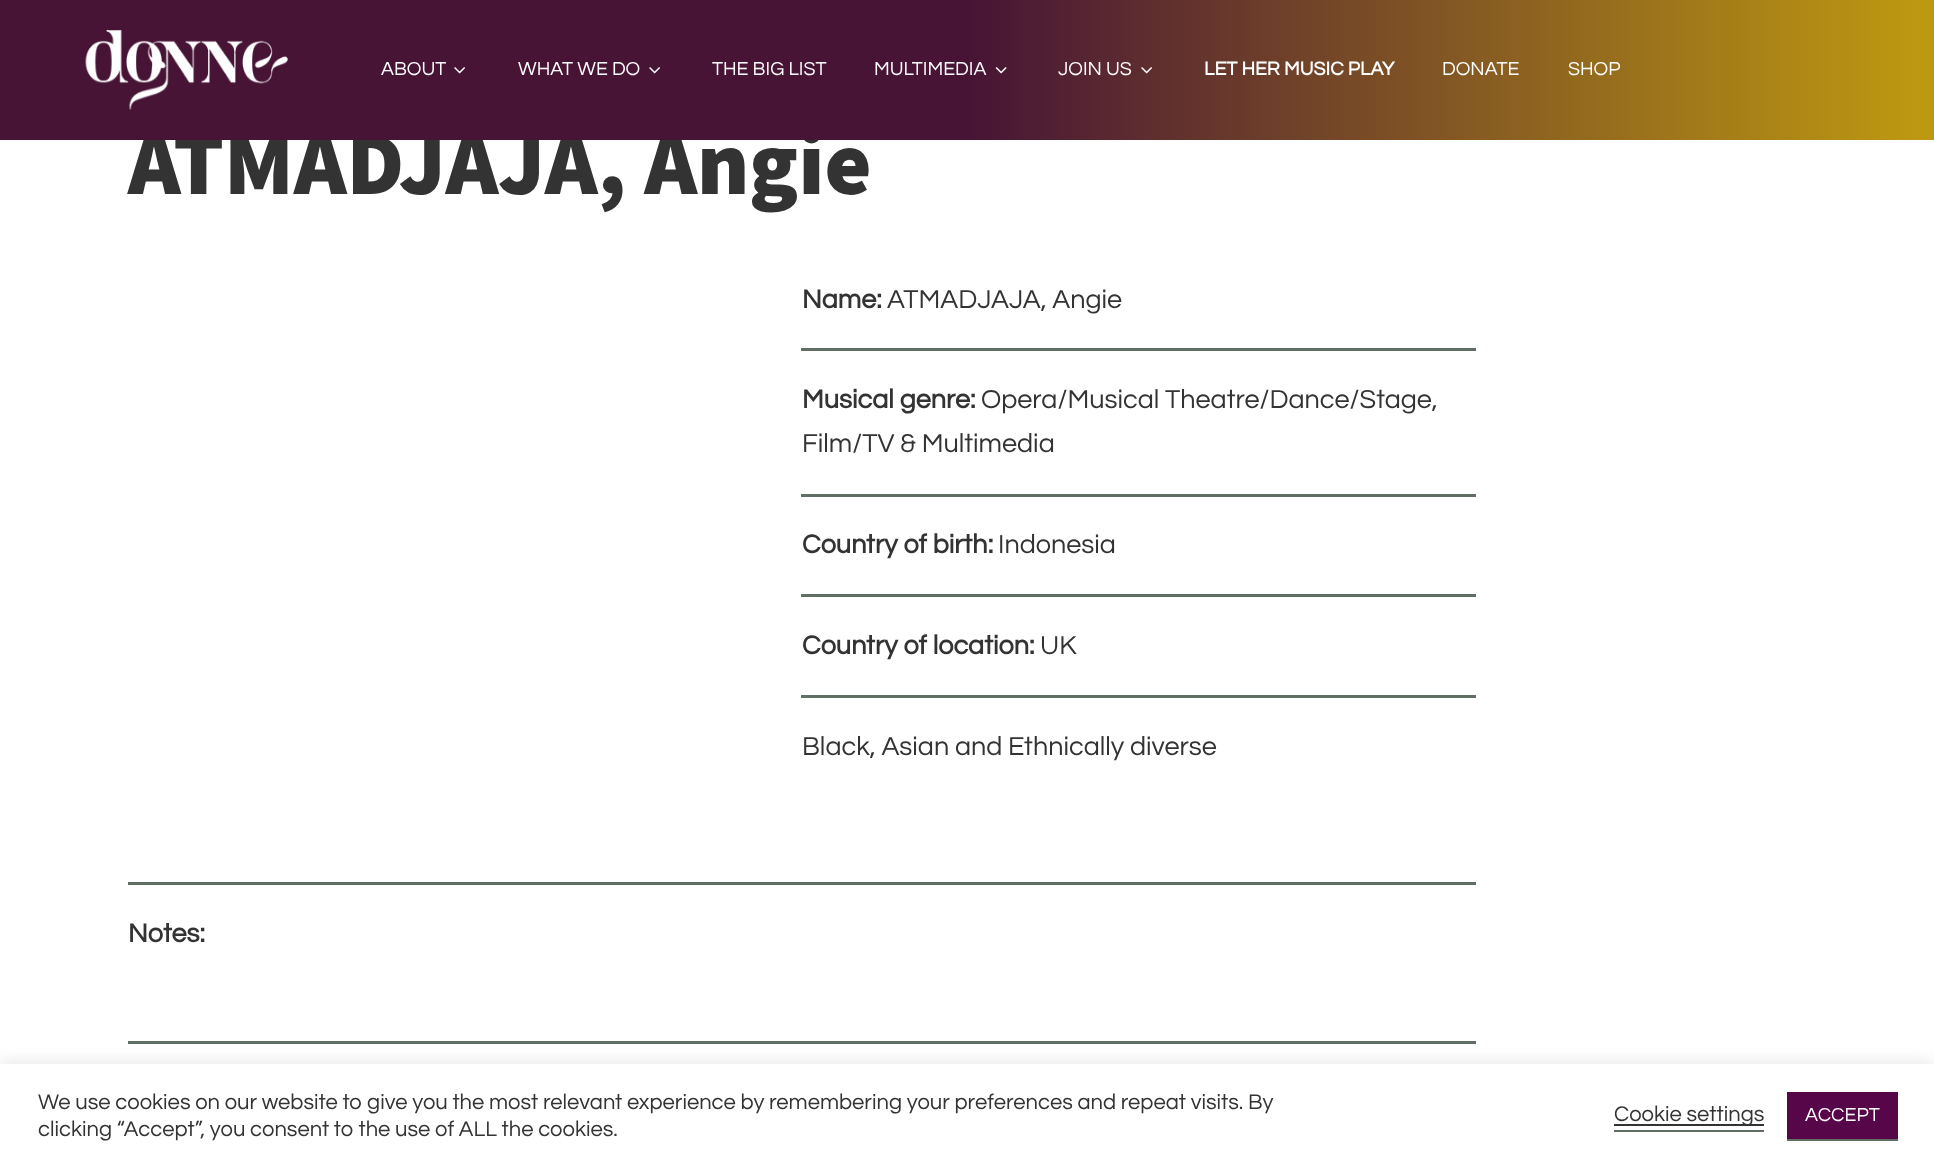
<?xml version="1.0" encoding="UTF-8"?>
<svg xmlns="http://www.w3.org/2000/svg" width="1934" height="1168">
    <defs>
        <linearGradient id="g1" gradientUnits="userSpaceOnUse" x1="0" y1="70" x2="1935" y2="70"><stop offset="0" stop-color="#471436"/><stop offset="0.5" stop-color="#471436"/><stop offset="0.99" stop-color="#BD9811"/><stop offset="1" stop-color="#BD9811"/></linearGradient>
        <filter id="blur1" x="-50%" y="-200%" width="200%" height="500%"><feGaussianBlur stdDeviation="7.5"/></filter>
    </defs>
    <rect width="100%" height="100%" fill="#FFFFFF"/>
    <text x="128" y="194" font-family="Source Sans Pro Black" font-size="90" font-weight="900" fill="#333333">ATMADJAJA, Angie</text>
    <rect x="0" y="0" width="1934" height="140" fill="url(#g1)"/>
    <image x="85" y="30" width="203" height="80" href="img_01.png"/>
    <text x="381" y="75" font-family="Questrial" font-size="19.5" fill="#FFFFFF">ABOUT</text>
    <image x="454" y="67" width="11" height="7" href="img_02.png"/>
    <text x="518" y="75" font-family="Questrial" font-size="19.5" fill="#FFFFFF">WHAT WE DO</text>
    <image x="649" y="67" width="11" height="7" href="img_02.png"/>
    <text x="712" y="75" font-family="Questrial" font-size="19.5" fill="#FFFFFF">THE BIG LIST</text>
    <text x="874" y="75" font-family="Questrial" font-size="19.5" fill="#FFFFFF">MULTIMEDIA</text>
    <image x="995" y="67" width="12" height="7" href="img_03.png"/>
    <text x="1058" y="75" font-family="Questrial" font-size="19.5" fill="#FFFFFF">JOIN US</text>
    <image x="1141" y="67" width="11" height="7" href="img_04.png"/>
    <text x="1204" y="75" font-family="Questrial" font-size="19.5" font-weight="700" fill="#FFFFFF">LET HER MUSIC PLAY</text>
    <text x="1442" y="75" font-family="Questrial" font-size="19.5" fill="#FFFFFF">DONATE</text>
    <text x="1568" y="75" font-family="Questrial" font-size="19.5" fill="#FFFFFF">SHOP</text>
    <text x="802" y="308" font-family="Questrial" font-size="27" font-weight="700" fill="#333333">Name:</text>
    <text x="887" y="308" font-family="Questrial" font-size="27" fill="#333333">ATMADJAJA, Angie</text>
    <rect x="801" y="348" width="675" height="3" fill="#616E63"/>
    <text x="802" y="408" font-family="Questrial" font-size="27" font-weight="700" fill="#333333">Musical genre:</text>
    <text x="981" y="408" font-family="Questrial" font-size="27" fill="#333333">Opera/Musical Theatre/Dance/Stage,</text>
    <text x="802" y="452" font-family="Questrial" font-size="27" fill="#333333">Film/TV &amp; Multimedia</text>
    <rect x="801" y="494" width="675" height="3" fill="#616E63"/>
    <text x="802" y="553" font-family="Questrial" font-size="27" font-weight="700" fill="#333333">Country of birth:</text>
    <text x="998" y="553" font-family="Questrial" font-size="27" fill="#333333">Indonesia</text>
    <rect x="801" y="594" width="675" height="3" fill="#616E63"/>
    <text x="802" y="654" font-family="Questrial" font-size="27" font-weight="700" fill="#333333">Country of location:</text>
    <text x="1040" y="654" font-family="Questrial" font-size="27" fill="#333333">UK</text>
    <rect x="801" y="695" width="675" height="3" fill="#616E63"/>
    <text x="802" y="755" font-family="Questrial" font-size="27" fill="#333333">Black, Asian and Ethnically diverse</text>
    <rect x="128" y="882" width="1348" height="3" fill="#616E63"/>
    <text x="128" y="942" font-family="Questrial" font-size="27" font-weight="700" fill="#333333">Notes:</text>
    <rect x="128" y="1041" width="1348" height="3" fill="#616E63"/>
    <rect x="0" y="1062" width="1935" height="105" fill="#ACABAB" fill-opacity="0.3" filter="url(#blur1)"/>
    <rect x="0" y="1064" width="1934" height="104" fill="#FFFFFF"/>
    <text font-family="Questrial" font-size="22" fill="#333333">
        <tspan x="38" y="1109">We use cookies on our website to give you the most relevant experience by remembering your preferences and repeat visits. By</tspan>
        <tspan x="38" y="1136">clicking “Accept”, you consent to the use of ALL the cookies.</tspan>
    </text>
    <rect x="1614" y="1130" width="150" height="2" fill="#616E63"/>
    <rect x="1614" y="1124" width="150" height="2" fill="#333333"/>
    <text x="1614" y="1121" font-family="Questrial" font-size="22" fill="#333333">Cookie settings</text>
    <rect x="1787" y="1092" width="111" height="47" fill="#570649"/>
    <rect x="1787" y="1139" width="111" height="2" fill="#616E63"/>
    <text x="1805" y="1121" font-family="Questrial" font-size="19.5" fill="#FFFFFF">ACCEPT</text>
</svg>
